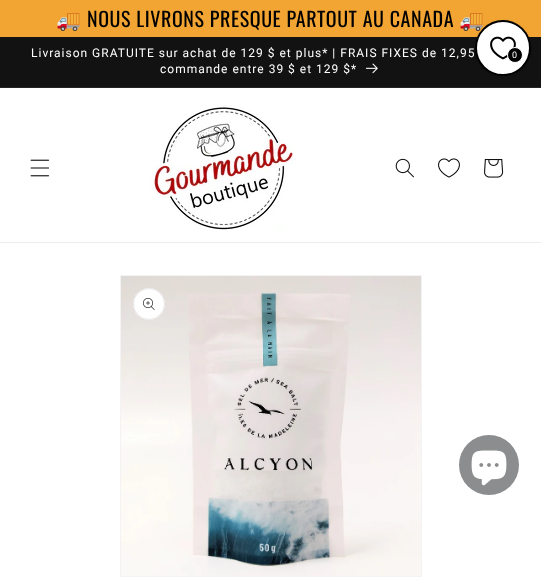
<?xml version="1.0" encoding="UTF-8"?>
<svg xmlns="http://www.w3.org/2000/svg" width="541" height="580">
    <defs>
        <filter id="blur1" x="-50%" y="-200%" width="200%" height="500%"><feGaussianBlur stdDeviation="2"/></filter>
    </defs>
    <rect width="100%" height="100%" fill="#FFFFFF"/>
    <rect x="0" y="0" width="541" height="37" fill="#F2A532"/>
    <text x="56" y="27" font-family="Noto Color Emoji" font-size="20" letter-spacing="0.6" fill="#000000">🚚</text>
    <text x="87" y="27" font-family="Oswald" font-size="20" letter-spacing="0.6" fill="#000000">NOUS LIVRONS PRESQUE PARTOUT AU CANADA</text>
    <text x="459" y="27" font-family="Noto Color Emoji" font-size="20" letter-spacing="0.6" fill="#000000">🚚</text>
    <rect x="0" y="37" width="541" height="50" fill="#121212"/>
    <rect x="0" y="87" width="541" height="1" fill="#252525"/>
    <text x="31" y="57" font-family="Roboto" font-size="12" letter-spacing="1" fill="#FFFFFF">Livraison GRATUITE sur achat de 129 $ et plus* | FRAIS FIXES de 12,95</text>
    <text x="160" y="73" font-family="Roboto" font-size="12" letter-spacing="1" fill="#FFFFFF">commande entre 39 $ et 129 $*</text>
    <image x="366" y="63" width="12" height="11" href="img_01.png"/>
    <rect x="475" y="22" width="56" height="56" rx="28" fill="#000000" fill-opacity="0.15" filter="url(#blur1)"/>
    <circle cx="503" cy="48" r="27" fill="#FFFFFF" stroke="#000000" stroke-width="2"/>
    <image x="490" y="36" width="26" height="24" href="img_02.png"/>
    <circle cx="515" cy="55" r="7.5" fill="#000000" stroke="#FFFFFF"/>
    <text x="512" y="58" font-family="Roboto" font-size="9" letter-spacing="0.6" fill="#FFFFFF">0</text>
    <rect x="0" y="242" width="541" height="1" fill="#ECECEC"/>
    <image x="30" y="159" width="20" height="18" href="img_03.png"/>
    <image x="148" y="105" width="148" height="125" href="img_04.png"/>
    <image x="395" y="158" width="19" height="20" href="img_05.png"/>
    <image x="438" y="158" width="22" height="20" href="img_06.png"/>
    <image x="484" y="159" width="20" height="19" href="img_07.png"/>
    <rect x="120.5" y="275.5" width="301" height="301" fill="none" stroke="#F3F3F3"/>
    <image x="121" y="276" width="300" height="300" href="img_08.png"/>
    <circle cx="149" cy="304" r="16" fill="#FFFFFF"/>
    <circle cx="149" cy="304" r="15.5" fill="none" stroke="#121212" stroke-opacity="0.1"/>
    <image x="143" y="298" width="12" height="12" href="img_09.png"/>
    <circle cx="489" cy="465" r="30" fill="#8C8D8E"/>
    <image x="471" y="450" width="36" height="36" href="img_10.png"/>
</svg>
